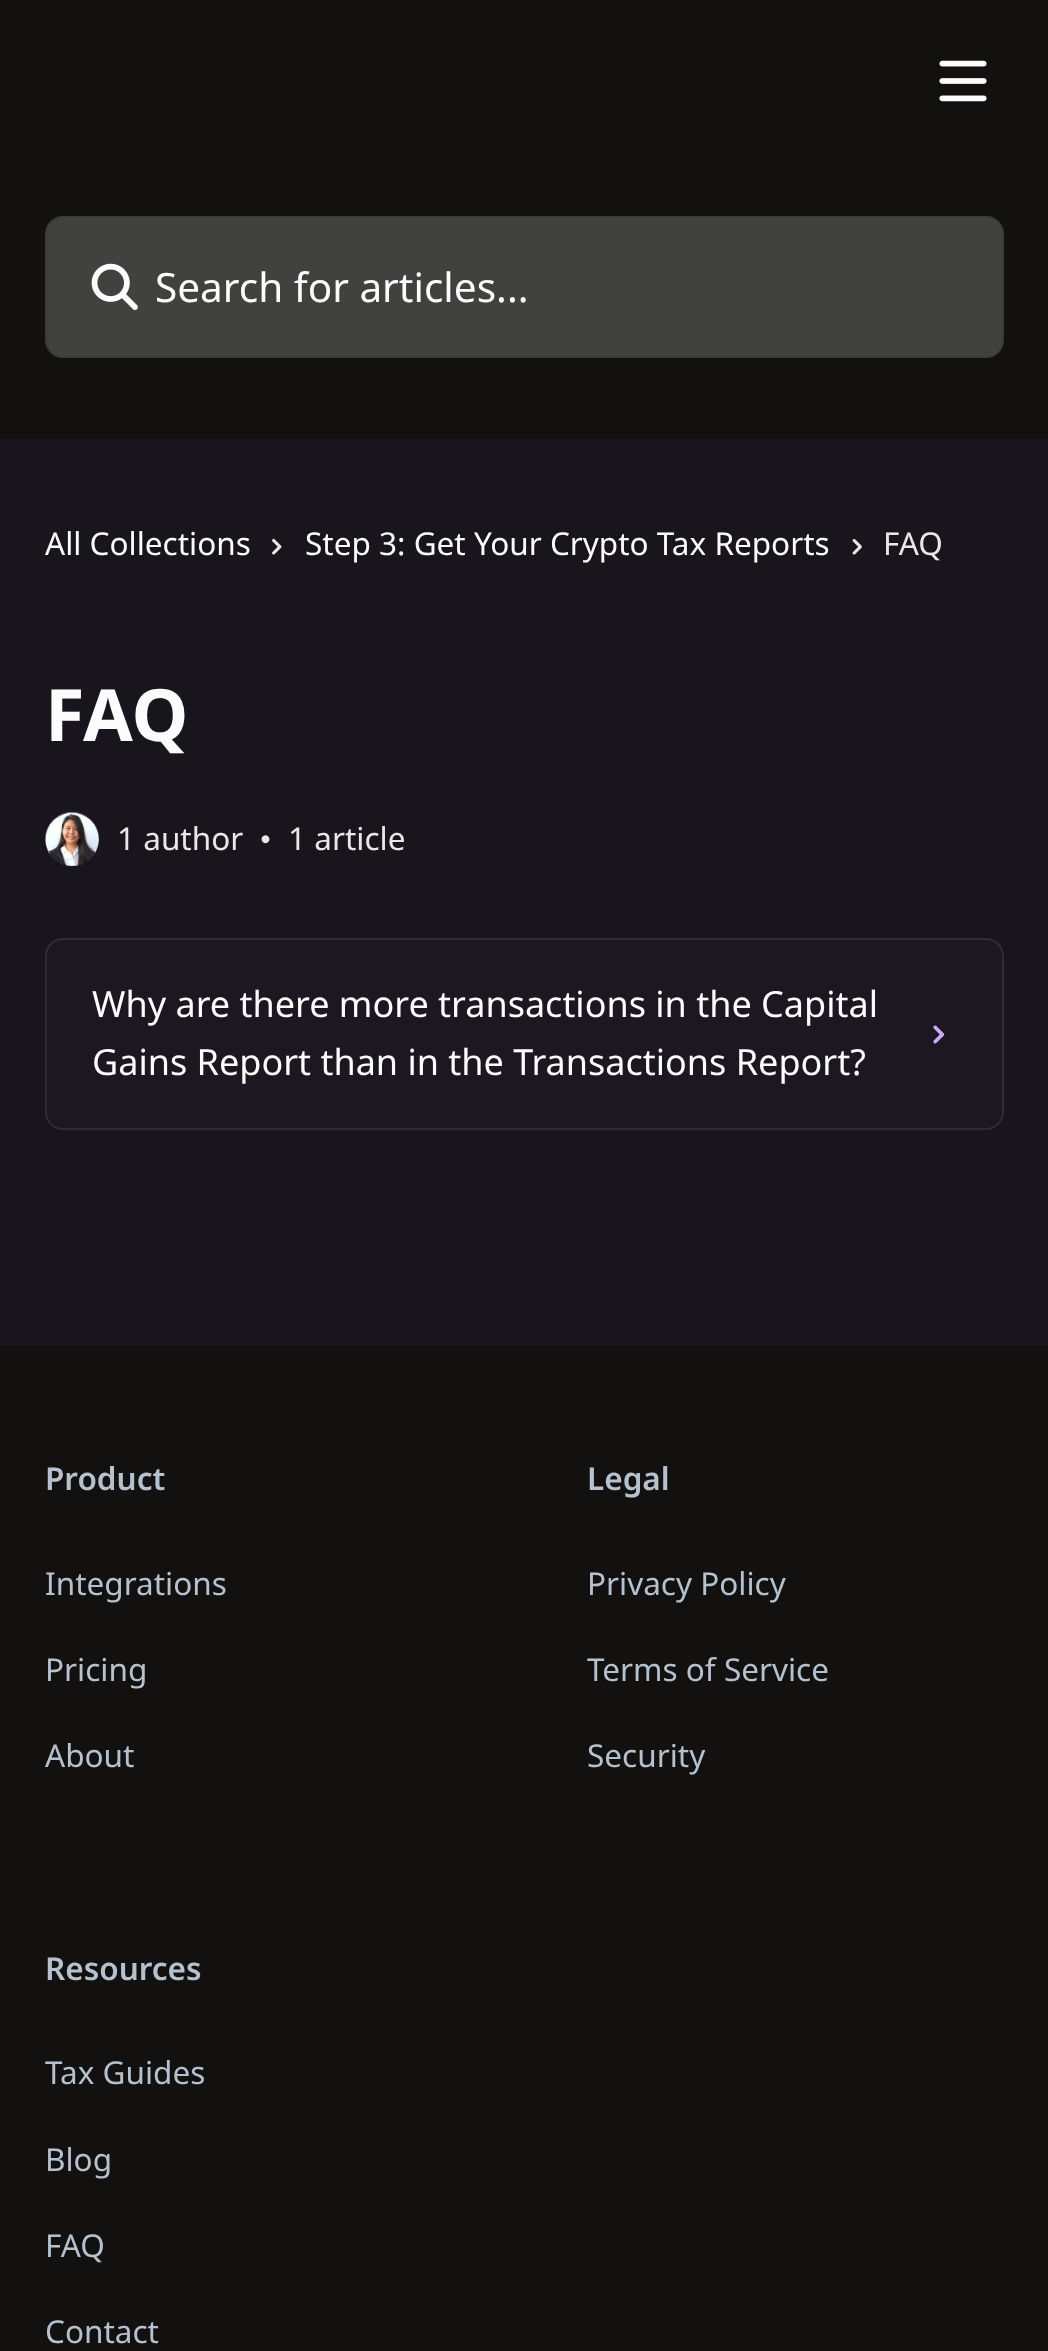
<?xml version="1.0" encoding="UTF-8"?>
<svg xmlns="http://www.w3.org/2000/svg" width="1048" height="2351">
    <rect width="100%" height="100%" fill="#19151D"/>
    <rect x="0" y="0" width="1048" height="439" fill="#12110F"/>
    <image x="939" y="60" width="48" height="42" href="img_01.png"/>
    <rect x="45" y="216" width="959" height="142" rx="18" fill="#41413F"/>
    <rect x="46" y="217" width="957" height="140" rx="17" fill="none" stroke="#000000" stroke-opacity="0.08" stroke-width="2"/>
    <image x="91" y="263" width="47" height="47" href="img_02.png"/>
    <text x="155" y="302" font-family="Noto Sans" font-size="40.5" fill="#FCFCFC">Search for articles...</text>
    <text x="45" y="555" font-family="Noto Sans" font-size="31.5" fill="#FCFCFC">All Collections</text>
    <image x="272" y="538" width="10" height="17" href="img_03.png"/>
    <text x="305" y="555" font-family="Noto Sans" font-size="31.5" fill="#FCFCFC">Step 3: Get Your Crypto Tax Reports</text>
    <image x="852" y="538" width="10" height="17" href="img_04.png"/>
    <text x="883" y="555" font-family="Noto Sans" font-size="31.5" fill="#E8E8E8">FAQ</text>
    <text x="45" y="741" font-family="Noto Sans" font-size="72" font-weight="700" fill="#FCFCFC">FAQ</text>
    <circle cx="72" cy="839" r="27" fill="#CDABF7"/>
    <image x="45" y="812" width="54" height="55" href="img_05.png"/>
    <text x="117" y="850" font-family="Noto Sans" font-size="31.5" fill="#E8E8E8">1 author</text>
    <image x="261" y="835" width="9" height="9" href="img_06.png"/>
    <text x="288" y="850" font-family="Noto Sans" font-size="31.5" fill="#E8E8E8">1 article</text>
    <rect x="46" y="939" width="957" height="190" rx="17" fill="#1C1720" stroke="#322A3B" stroke-width="2"/>
    <text font-family="Noto Sans" font-size="36" fill="#FCFCFC">
        <tspan x="92" y="1017">Why are there more transactions in the Capital</tspan>
        <tspan x="92" y="1075">Gains Report than in the Transactions Report?</tspan>
    </text>
    <image x="933" y="1025" width="12" height="19" href="img_07.png"/>
    <rect x="0" y="1346" width="1048" height="1005" fill="#12110F"/>
    <text x="45" y="1490" font-family="Noto Sans" font-size="31.5" font-weight="600" fill="#B5C1CF">Product</text>
    <text x="45" y="1595" font-family="Noto Sans" font-size="31.5" fill="#B5C1CF">Integrations</text>
    <text x="45" y="1681" font-family="Noto Sans" font-size="31.5" fill="#B5C1CF">Pricing</text>
    <text x="45" y="1767" font-family="Noto Sans" font-size="31.5" fill="#B5C1CF">About</text>
    <text x="587" y="1490" font-family="Noto Sans" font-size="31.5" font-weight="600" fill="#B5C1CF">Legal</text>
    <text x="587" y="1595" font-family="Noto Sans" font-size="31.5" fill="#B5C1CF">Privacy Policy</text>
    <text x="587" y="1681" font-family="Noto Sans" font-size="31.5" fill="#B5C1CF">Terms of Service</text>
    <text x="587" y="1767" font-family="Noto Sans" font-size="31.5" fill="#B5C1CF">Security</text>
    <text x="45" y="1980" font-family="Noto Sans" font-size="31.5" font-weight="600" fill="#B5C1CF">Resources</text>
    <text x="45" y="2084" font-family="Noto Sans" font-size="31.5" fill="#B5C1CF">Tax Guides</text>
    <text x="45" y="2171" font-family="Noto Sans" font-size="31.5" fill="#B5C1CF">Blog</text>
    <text x="45" y="2257" font-family="Noto Sans" font-size="31.5" fill="#B5C1CF">FAQ</text>
    <text x="45" y="2343" font-family="Noto Sans" font-size="31.5" fill="#B5C1CF">Contact</text>
</svg>
